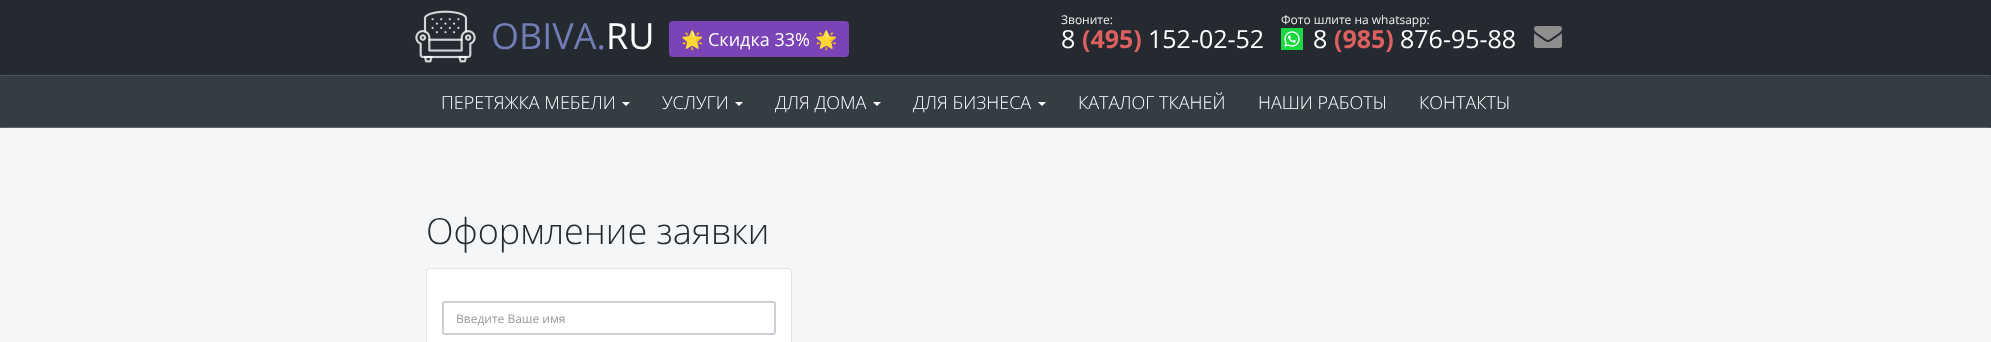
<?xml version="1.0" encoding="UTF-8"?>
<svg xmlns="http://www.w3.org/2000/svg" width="1991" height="342">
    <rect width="100%" height="100%" fill="#F4F6F7"/>
    <rect x="0" y="0" width="1991" height="76" fill="#242A30"/>
    <path d="M 1991 76 H 0 L 1 75 H 1990 Z" fill="#505559"/>
    <image x="415" y="10" width="61" height="53" href="img_01.png"/>
    <text x="491" y="49" font-family="Open Sans" font-size="36" fill="#727CB6">OBIVA.</text>
    <text x="606" y="49" font-family="Open Sans" font-size="36" fill="#FFFFFF">RU</text>
    <rect x="669" y="21" width="180" height="36" rx="4" fill="#7A43B6"/>
    <path d="M 667 15.5 L 670 11.5 L 678 17.5 L 675 21.5 Z" fill="#242A30"/>
    <text x="681" y="46" font-family="Noto Color Emoji" font-size="18" fill="#FFFFFF">🌟</text>
    <text x="708" y="46" font-family="Open Sans" font-size="18" fill="#FFFFFF">Скидка 33%</text>
    <text x="815" y="46" font-family="Noto Color Emoji" font-size="18" fill="#FFFFFF">🌟</text>
    <text x="1061" y="24" font-family="Open Sans" font-size="12" fill="#EEEEEE">Звоните:</text>
    <text x="1061" y="48" font-family="Open Sans" font-size="25" fill="#FFFFFF">8</text>
    <text x="1082" y="48" font-family="Open Sans" font-size="25" font-weight="700" fill="#DC6060">(495)</text>
    <text x="1148" y="48" font-family="Open Sans" font-size="25" fill="#FFFFFF">152-02-52</text>
    <text x="1281" y="24" font-family="Open Sans" font-size="12" fill="#EEEEEE">Фото шлите на whatsapp:</text>
    <image x="1281" y="28" width="22" height="22" href="img_02.png"/>
    <text x="1313" y="48" font-family="Open Sans" font-size="25" fill="#FFFFFF">8</text>
    <text x="1334" y="48" font-family="Open Sans" font-size="25" font-weight="700" fill="#DC6060">(985)</text>
    <text x="1400" y="48" font-family="Open Sans" font-size="25" fill="#FFFFFF">876-95-88</text>
    <image x="1534" y="26" width="28" height="22" href="img_03.png"/>
    <rect x="0" y="76" width="1991" height="52" fill="#343C44"/>
    <path d="M 1991 128 H 0 L 1 127 H 1990 Z" fill="#5D6369"/>
    <text x="441" y="109" font-family="Open Sans" font-size="18" font-weight="300" fill="#FFFFFF">ПЕРЕТЯЖКА МЕБЕЛИ</text>
    <path d="M 622 102 H 630 L 626 106 Z" fill="#FFFFFF"/>
    <text x="662" y="109" font-family="Open Sans" font-size="18" font-weight="300" fill="#FFFFFF">УСЛУГИ</text>
    <path d="M 735 102 H 743 L 739 106 Z" fill="#FFFFFF"/>
    <text x="775" y="109" font-family="Open Sans" font-size="18" font-weight="300" fill="#FFFFFF">ДЛЯ ДОМА</text>
    <path d="M 873 102 H 881 L 877 106 Z" fill="#FFFFFF"/>
    <text x="913" y="109" font-family="Open Sans" font-size="18" font-weight="300" fill="#FFFFFF">ДЛЯ БИЗНЕСА</text>
    <path d="M 1038 102 H 1046 L 1042 106 Z" fill="#FFFFFF"/>
    <text x="1078" y="109" font-family="Open Sans" font-size="18" font-weight="300" fill="#FFFFFF">КАТАЛОГ ТКАНЕЙ</text>
    <text x="1258" y="109" font-family="Open Sans" font-size="18" font-weight="300" fill="#FFFFFF">НАШИ РАБОТЫ</text>
    <text x="1419" y="109" font-family="Open Sans" font-size="18" font-weight="300" fill="#FFFFFF">КОНТАКТЫ</text>
    <text x="426" y="244" font-family="Open Sans" font-size="36" font-weight="300" fill="#242A30">Оформление заявки</text>
    <rect x="426.5" y="268.5" width="365" height="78" rx="3.5" fill="#FFFFFF" stroke="#E3E3E3"/>
    <rect x="443" y="302" width="332" height="32" rx="2" fill="none" stroke="#CCD0D4" stroke-width="2"/>
    <text x="456" y="323" font-family="Open Sans" font-size="12" fill="#999999">Введите Ваше имя</text>
</svg>
